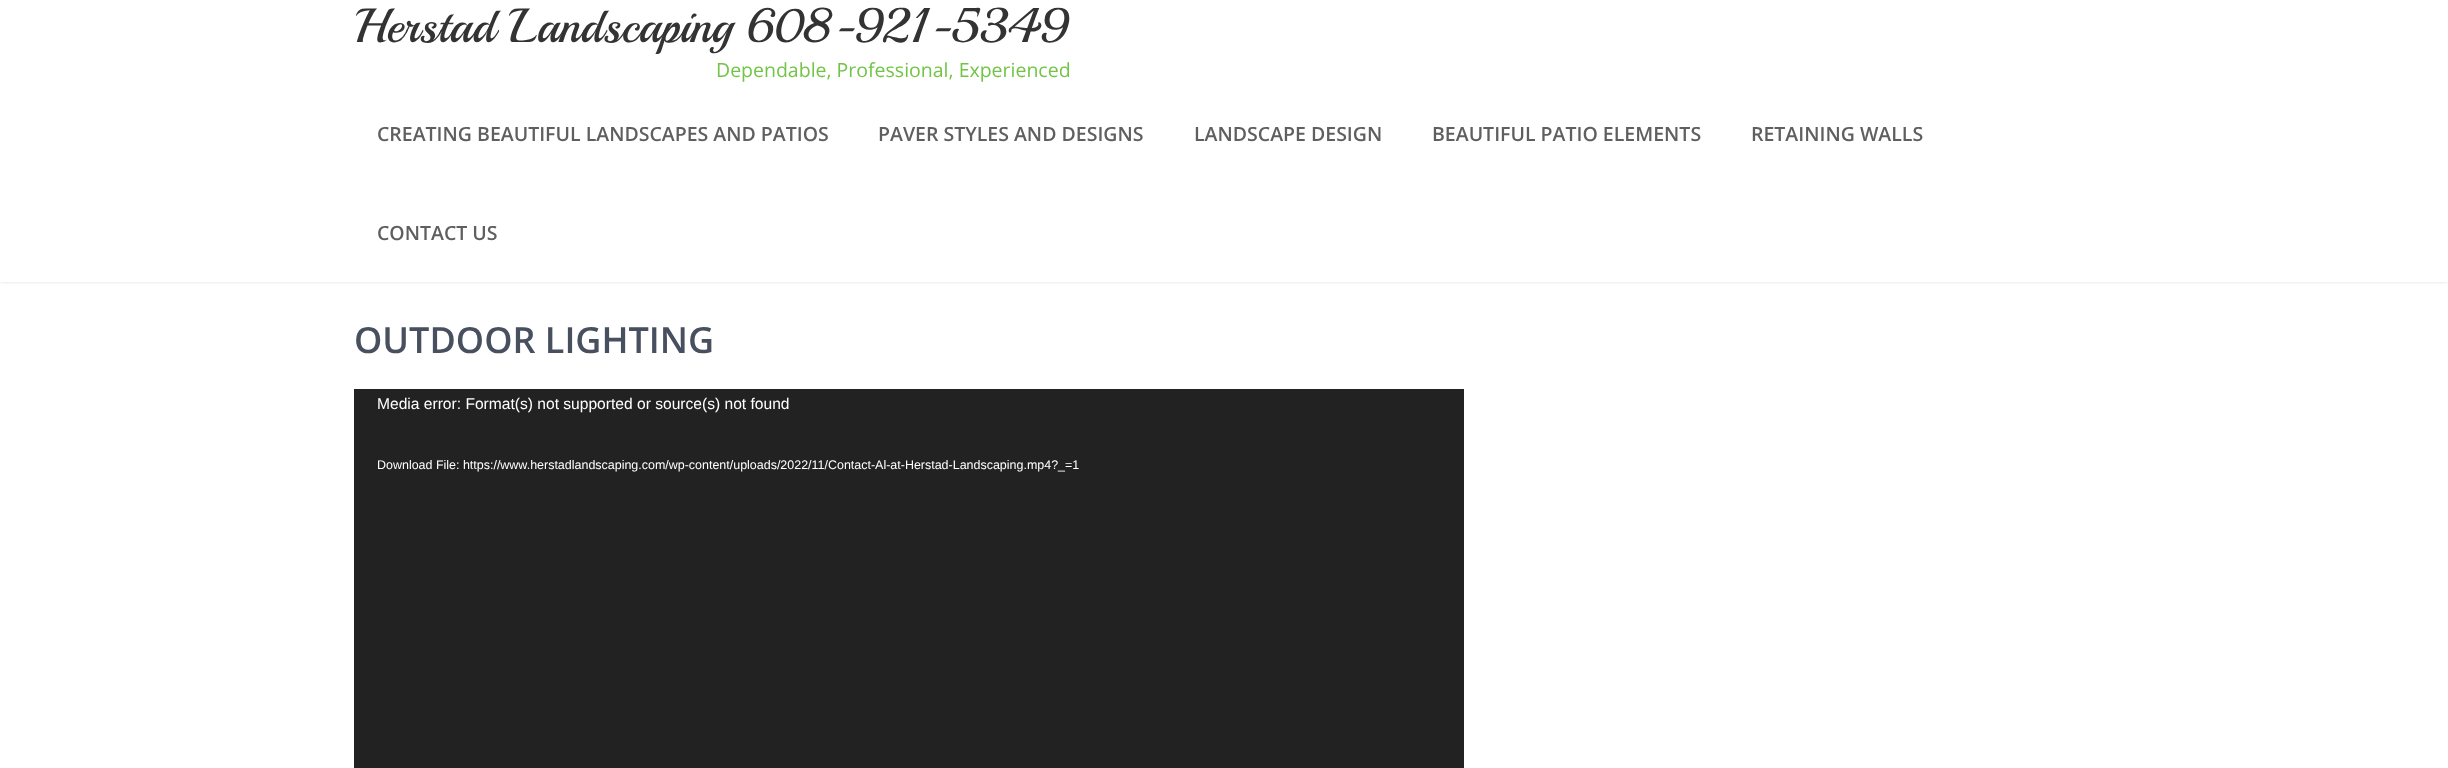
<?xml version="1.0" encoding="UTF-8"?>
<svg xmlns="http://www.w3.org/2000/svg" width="2448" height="768">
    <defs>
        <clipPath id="clip1"><rect x="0" y="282" width="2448" height="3"/></clipPath>
        <filter id="blur1" x="-50%" y="-200%" width="200%" height="500%"><feGaussianBlur stdDeviation="2"/></filter>
    </defs>
    <rect width="100%" height="100%" fill="#FFFFFF"/>
    <g clip-path="url(#clip1)">
        <rect x="0" y="-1" width="2448" height="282" fill="#CCCCCC" filter="url(#blur1)"/>
    </g>
    <text x="354" y="42" font-family="Playball" font-size="48" fill="#333333">Herstad Landscaping 608-921-5349</text>
    <text x="716" y="77" font-family="Open Sans" font-size="19.5" fill="#72C446">Dependable, Professional, Experienced</text>
    <text x="377" y="141" font-family="Open Sans" font-size="19.5" font-weight="600" fill="#5F5F5F">CREATING BEAUTIFUL LANDSCAPES AND PATIOS</text>
    <text x="878" y="141" font-family="Open Sans" font-size="19.5" font-weight="600" fill="#5F5F5F">PAVER STYLES AND DESIGNS</text>
    <text x="1194" y="141" font-family="Open Sans" font-size="19.5" font-weight="600" fill="#5F5F5F">LANDSCAPE DESIGN</text>
    <text x="1432" y="141" font-family="Open Sans" font-size="19.5" font-weight="600" fill="#5F5F5F">BEAUTIFUL PATIO ELEMENTS</text>
    <text x="1751" y="141" font-family="Open Sans" font-size="19.5" font-weight="600" fill="#5F5F5F">RETAINING WALLS</text>
    <text x="377" y="240" font-family="Open Sans" font-size="19.5" font-weight="600" fill="#5F5F5F">CONTACT US</text>
    <text x="354" y="353" font-family="Open Sans" font-size="36" font-weight="600" fill="#484F5E">OUTDOOR LIGHTING</text>
    <rect x="354" y="389" width="1110" height="379" fill="#222222"/>
    <text x="377" y="409" font-family="Liberation Sans" font-size="15.6" fill="#FFFFFF">Media error: Format(s) not supported or source(s) not found</text>
    <text x="377" y="469" font-family="Liberation Sans" font-size="12.48" fill="#FFFFFF">Download File: https://www.herstadlandscaping.com/wp-content/uploads/2022/11/Contact-Al-at-Herstad-Landscaping.mp4?_=1</text>
</svg>
